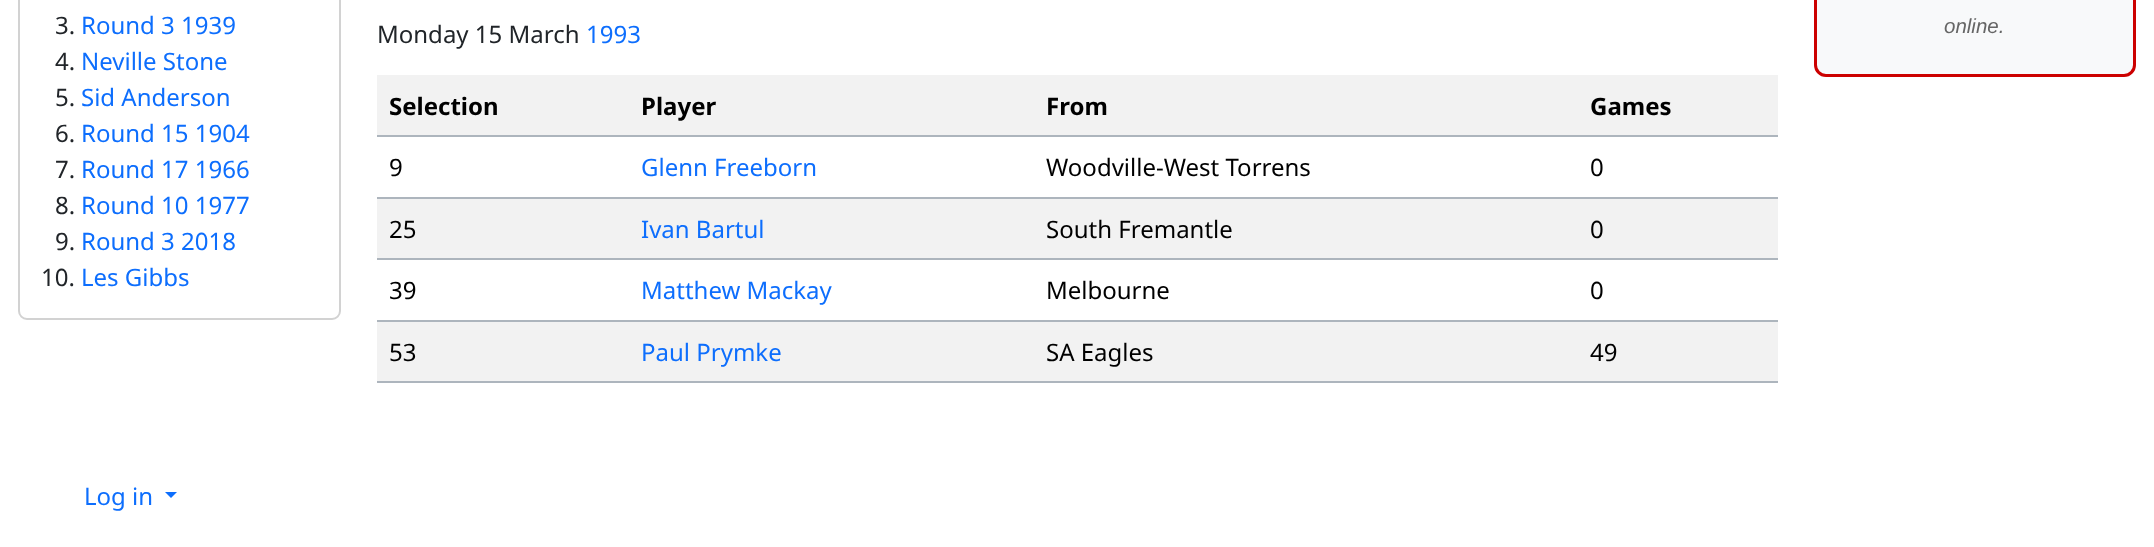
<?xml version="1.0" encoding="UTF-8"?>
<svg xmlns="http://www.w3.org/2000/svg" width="2154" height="547">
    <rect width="100%" height="100%" fill="#FFFFFF"/>
    <rect x="19" y="-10" width="321" height="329" rx="8" fill="none" stroke="#D2D2D2" stroke-width="2"/>
    <text x="55" y="34" font-family="Noto Sans" font-size="24" fill="#212529">3.</text>
    <text x="81" y="34" font-family="Noto Sans" font-size="24" fill="#0D6EFD">Round 3 1939</text>
    <text x="55" y="70" font-family="Noto Sans" font-size="24" fill="#212529">4.</text>
    <text x="81" y="70" font-family="Noto Sans" font-size="24" fill="#0D6EFD">Neville Stone</text>
    <text x="55" y="106" font-family="Noto Sans" font-size="24" fill="#212529">5.</text>
    <text x="81" y="106" font-family="Noto Sans" font-size="24" fill="#0D6EFD">Sid Anderson</text>
    <text x="55" y="142" font-family="Noto Sans" font-size="24" fill="#212529">6.</text>
    <text x="81" y="142" font-family="Noto Sans" font-size="24" fill="#0D6EFD">Round 15 1904</text>
    <text x="55" y="178" font-family="Noto Sans" font-size="24" fill="#212529">7.</text>
    <text x="81" y="178" font-family="Noto Sans" font-size="24" fill="#0D6EFD">Round 17 1966</text>
    <text x="55" y="214" font-family="Noto Sans" font-size="24" fill="#212529">8.</text>
    <text x="81" y="214" font-family="Noto Sans" font-size="24" fill="#0D6EFD">Round 10 1977</text>
    <text x="55" y="250" font-family="Noto Sans" font-size="24" fill="#212529">9.</text>
    <text x="81" y="250" font-family="Noto Sans" font-size="24" fill="#0D6EFD">Round 3 2018</text>
    <text x="41" y="286" font-family="Noto Sans" font-size="24" fill="#212529">10.</text>
    <text x="81" y="286" font-family="Noto Sans" font-size="24" fill="#0D6EFD">Les Gibbs</text>
    <text x="377" y="43" font-family="Noto Sans" font-size="24" fill="#212529">Monday 15 March</text>
    <text x="586" y="43" font-family="Noto Sans" font-size="24" fill="#0D6EFD">1993</text>
    <rect x="377" y="75" width="1401" height="60" fill="#F2F2F2"/>
    <text x="389" y="115" font-family="Noto Sans" font-size="24" font-weight="700" fill="#000000">Selection</text>
    <text x="641" y="115" font-family="Noto Sans" font-size="24" font-weight="700" fill="#000000">Player</text>
    <text x="1046" y="115" font-family="Noto Sans" font-size="24" font-weight="700" fill="#000000">From</text>
    <rect x="377" y="135" width="1401" height="2" fill="#ADB5BD"/>
    <text x="1590" y="115" font-family="Noto Sans" font-size="24" font-weight="700" fill="#000000">Games</text>
    <text x="389" y="176" font-family="Noto Sans" font-size="24" fill="#000000">9</text>
    <text x="641" y="176" font-family="Noto Sans" font-size="24" fill="#0D6EFD">Glenn Freeborn</text>
    <text x="1046" y="176" font-family="Noto Sans" font-size="24" fill="#000000">Woodville-West Torrens</text>
    <rect x="377" y="197" width="1401" height="2" fill="#ADB5BD"/>
    <text x="1590" y="176" font-family="Noto Sans" font-size="24" fill="#000000">0</text>
    <rect x="377" y="199" width="1401" height="59" fill="#F2F2F2"/>
    <text x="389" y="238" font-family="Noto Sans" font-size="24" fill="#000000">25</text>
    <text x="641" y="238" font-family="Noto Sans" font-size="24" fill="#0D6EFD">Ivan Bartul</text>
    <text x="1046" y="238" font-family="Noto Sans" font-size="24" fill="#000000">South Fremantle</text>
    <rect x="377" y="258" width="1401" height="2" fill="#ADB5BD"/>
    <text x="1590" y="238" font-family="Noto Sans" font-size="24" fill="#000000">0</text>
    <text x="389" y="299" font-family="Noto Sans" font-size="24" fill="#000000">39</text>
    <text x="641" y="299" font-family="Noto Sans" font-size="24" fill="#0D6EFD">Matthew Mackay</text>
    <text x="1046" y="299" font-family="Noto Sans" font-size="24" fill="#000000">Melbourne</text>
    <rect x="377" y="320" width="1401" height="2" fill="#ADB5BD"/>
    <text x="1590" y="299" font-family="Noto Sans" font-size="24" fill="#000000">0</text>
    <rect x="377" y="322" width="1401" height="59" fill="#F2F2F2"/>
    <text x="389" y="361" font-family="Noto Sans" font-size="24" fill="#000000">53</text>
    <text x="641" y="361" font-family="Noto Sans" font-size="24" fill="#0D6EFD">Paul Prymke</text>
    <text x="1046" y="361" font-family="Noto Sans" font-size="24" fill="#000000">SA Eagles</text>
    <rect x="377" y="381" width="1401" height="2" fill="#ADB5BD"/>
    <text x="1590" y="361" font-family="Noto Sans" font-size="24" fill="#000000">49</text>
    <rect x="1815.5" y="-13.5" width="319" height="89" rx="10.5" fill="#F8F9FA" stroke="#CC0000" stroke-width="3"/>
    <text x="1944" y="33" font-family="Liberation Sans" font-size="20.5" font-style="italic" fill="#666666">online.</text>
    <text x="84" y="505" font-family="Noto Sans" font-size="24" fill="#0D6EFD">Log in</text>
    <path d="M 165 492 H 177 L 171 498 Z" fill="#0D6EFD"/>
</svg>
